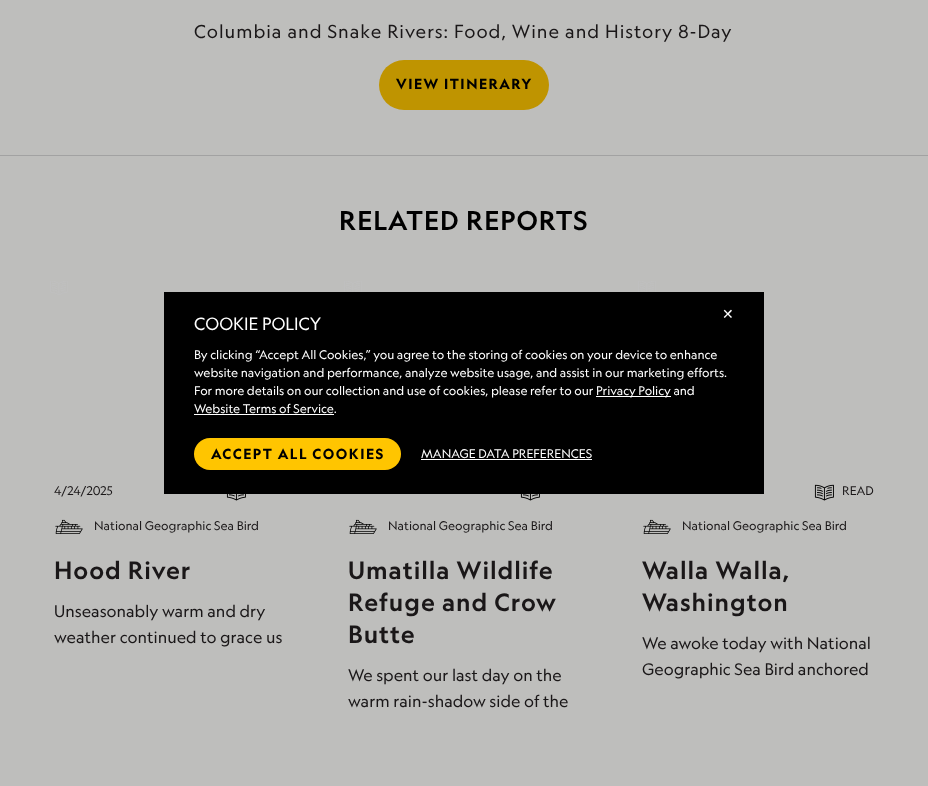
<?xml version="1.0" encoding="UTF-8"?>
<svg xmlns="http://www.w3.org/2000/svg" width="928" height="786">
    <rect width="100%" height="100%" fill="#BEBEBC"/>
    <rect x="0" y="155" width="928" height="1" fill="#A2A2A2"/>
    <text x="194" y="38" font-family="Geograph" font-size="18" letter-spacing="0.95" fill="#1A1718">Columbia and Snake Rivers: Food, Wine and History 8-Day</text>
    <rect x="379" y="60" width="170" height="50" rx="25" fill="#BF9400"/>
    <text x="396" y="89" font-family="Geograph" font-size="14" font-weight="700" letter-spacing="1.5" fill="#000000">VIEW ITINERARY</text>
    <text x="339" y="230" font-family="Geograph" font-size="26" font-weight="500" letter-spacing="1" fill="#000000">RELATED REPORTS</text>
    <image x="50" y="281" width="18" height="14" href="img_01.png"/>
    <text x="54" y="495" font-family="Geograph" font-size="12" fill="#1A1718">4/24/2025</text>
    <image x="226" y="494" width="20" height="7" href="img_02.png"/>
    <image x="55" y="519" width="28" height="15" href="img_03.png"/>
    <text x="94" y="530" font-family="Geograph" font-size="12" fill="#1A1718">National Geographic Sea Bird</text>
    <text x="54" y="579" font-family="Geograph" font-size="24" font-weight="500" letter-spacing="0.95" fill="#1A1718">Hood River</text>
    <text font-family="Geograph" font-size="16" fill="#1A1718">
        <tspan x="54" y="617">Unseasonably warm and dry</tspan>
        <tspan x="54" y="643">weather continued to grace us</tspan>
    </text>
    <image x="344" y="281" width="18" height="11" href="img_04.png"/>
    <image x="520" y="494" width="20" height="7" href="img_02.png"/>
    <image x="349" y="519" width="28" height="15" href="img_03.png"/>
    <text x="388" y="530" font-family="Geograph" font-size="12" fill="#1A1718">National Geographic Sea Bird</text>
    <text font-family="Geograph" font-size="24" font-weight="500" letter-spacing="0.95" fill="#1A1718">
        <tspan x="348" y="579">Umatilla Wildlife</tspan>
        <tspan x="348" y="611">Refuge and Crow</tspan>
        <tspan x="348" y="643">Butte</tspan>
    </text>
    <text font-family="Geograph" font-size="16" fill="#1A1718">
        <tspan x="348" y="681">We spent our last day on the</tspan>
        <tspan x="348" y="707">warm rain-shadow side of the</tspan>
    </text>
    <image x="638" y="281" width="18" height="11" href="img_04.png"/>
    <image x="814" y="484" width="20" height="17" href="img_05.png"/>
    <text x="842" y="495" font-family="Geograph" font-size="12" fill="#1A1718">READ</text>
    <image x="643" y="519" width="28" height="15" href="img_03.png"/>
    <text x="682" y="530" font-family="Geograph" font-size="12" fill="#1A1718">National Geographic Sea Bird</text>
    <text font-family="Geograph" font-size="24" font-weight="500" letter-spacing="0.95" fill="#1A1718">
        <tspan x="642" y="579">Walla Walla,</tspan>
        <tspan x="642" y="611">Washington</tspan>
    </text>
    <text font-family="Geograph" font-size="16" fill="#1A1718">
        <tspan x="642" y="649">We awoke today with National</tspan>
        <tspan x="642" y="675">Geographic Sea Bird anchored</tspan>
    </text>
    <rect x="164" y="292" width="600" height="202" fill="#000000"/>
    <text x="722" y="319" font-family="DejaVu Sans" font-size="14" fill="#FFFFFF">✕</text>
    <text x="194" y="330" font-family="Geograph" font-size="17" letter-spacing="-0.05" fill="#FFFFFF">COOKIE POLICY</text>
    <text font-family="Geograph" font-size="12" letter-spacing="-0.05" fill="#FFFFFF">
        <tspan x="194" y="359">By clicking “Accept All Cookies,” you agree to the storing of cookies on your device to enhance</tspan>
        <tspan x="194" y="377">website navigation and performance, analyze website usage, and assist in our marketing efforts.</tspan>
        <tspan x="194" y="395">For more details on our collection and use of cookies, please refer to our</tspan>
    </text>
    <rect x="596" y="396" width="75" height="1" fill="#FFFFFF"/>
    <text x="596" y="395" font-family="Geograph" font-size="12" letter-spacing="-0.05" fill="#FFFFFF">Privacy Policy and</text>
    <text x="194" y="413" font-family="Geograph" font-size="12" letter-spacing="-0.05" fill="#FFFFFF">Website Terms of Service.</text>
    <rect x="194" y="414" width="140" height="1" fill="#FFFFFF"/>
    <rect x="194" y="438" width="207" height="32" rx="16" fill="#FFC500"/>
    <text x="211" y="459" font-family="Geograph" font-size="14" font-weight="700" letter-spacing="1.5" fill="#000000">ACCEPT ALL COOKIES</text>
    <text x="421" y="458" font-family="Geograph" font-size="12" fill="#FFFFFF">MANAGE DATA PREFERENCES</text>
    <rect x="421" y="459" width="171" height="1" fill="#FFFFFF"/>
</svg>
